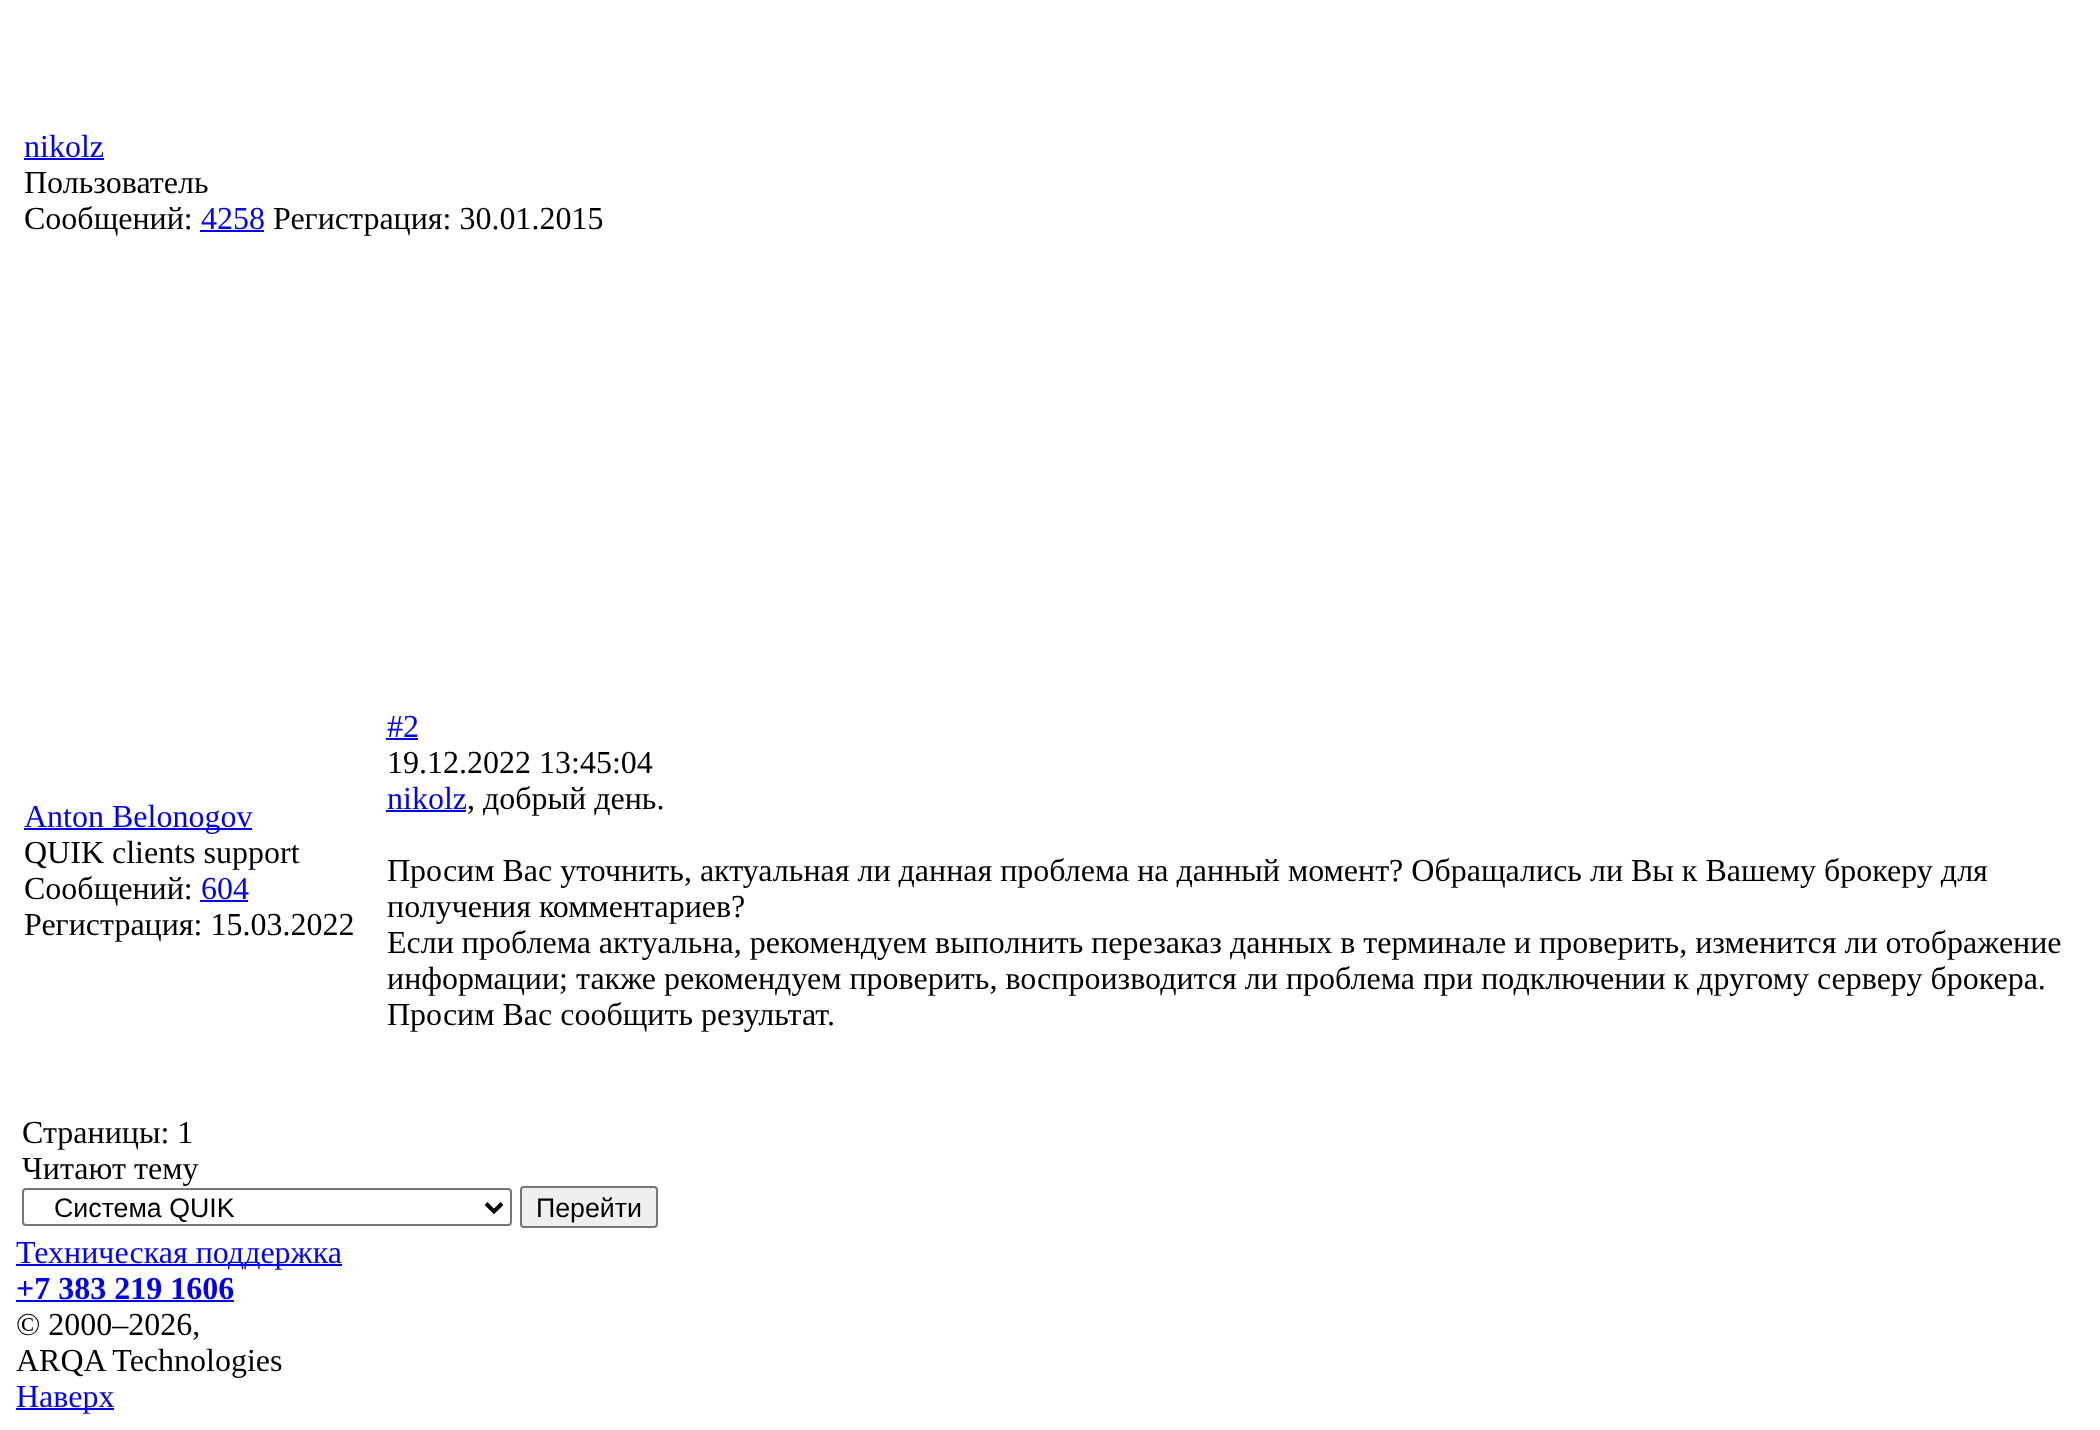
<?xml version="1.0" encoding="UTF-8"?>
<svg xmlns="http://www.w3.org/2000/svg" width="2100" height="1430">
    <rect width="100%" height="100%" fill="#FFFFFF"/>
    <text x="24" y="157" font-family="Liberation Serif" font-size="32" fill="#0000EE">nikolz</text>
    <rect x="24" y="158" width="80" height="2" fill="#0000EE"/>
    <text font-family="Liberation Serif" font-size="32" fill="#000000">
        <tspan x="24" y="193">Пользователь</tspan>
        <tspan x="24" y="229">Сообщений:</tspan>
    </text>
    <text x="201" y="229" font-family="Liberation Serif" font-size="32" fill="#0000EE">4258</text>
    <rect x="200" y="230" width="64" height="2" fill="#0000EE"/>
    <text x="273" y="229" font-family="Liberation Serif" font-size="32" fill="#000000">Регистрация: 30.01.2015</text>
    <rect x="24" y="828" width="228" height="2" fill="#0000EE"/>
    <text x="24" y="827" font-family="Liberation Serif" font-size="32" fill="#0000EE">Anton Belonogov</text>
    <text font-family="Liberation Serif" font-size="32" fill="#000000">
        <tspan x="24" y="863">QUIK clients support</tspan>
        <tspan x="24" y="899">Сообщений:</tspan>
    </text>
    <text x="201" y="899" font-family="Liberation Serif" font-size="32" fill="#0000EE">604</text>
    <rect x="200" y="900" width="48" height="2" fill="#0000EE"/>
    <text x="24" y="935" font-family="Liberation Serif" font-size="32" fill="#000000">Регистрация: 15.03.2022</text>
    <text x="387" y="737" font-family="Liberation Serif" font-size="32" fill="#0000EE">#2</text>
    <rect x="386" y="738" width="32" height="2" fill="#0000EE"/>
    <text x="387" y="773" font-family="Liberation Serif" font-size="32" fill="#000000">19.12.2022 13:45:04</text>
    <text x="387" y="809" font-family="Liberation Serif" font-size="32" fill="#0000EE">nikolz</text>
    <rect x="386" y="810" width="80" height="2" fill="#0000EE"/>
    <text x="467" y="809" font-family="Liberation Serif" font-size="32" fill="#000000">, добрый день.</text>
    <text font-family="Liberation Serif" font-size="32" fill="#000000">
        <tspan x="387" y="881">Просим Вас уточнить, актуальная ли данная проблема на данный момент? Обращались ли Вы к Вашему брокеру для</tspan>
        <tspan x="387" y="917">получения комментариев?</tspan>
        <tspan x="387" y="953">Если проблема актуальна, рекомендуем выполнить перезаказ данных в терминале и проверить, изменится ли отображение</tspan>
        <tspan x="387" y="989">информации; также рекомендуем проверить, воспроизводится ли проблема при подключении к другому серверу брокера.</tspan>
        <tspan x="387" y="1025">Просим Вас сообщить результат.</tspan>
    </text>
    <text font-family="Liberation Serif" font-size="32" fill="#000000">
        <tspan x="22" y="1143">Страницы: 1</tspan>
        <tspan x="22" y="1179">Читают тему</tspan>
    </text>
    <rect x="23" y="1189" width="488" height="36" rx="3" fill="none" stroke="#767676" stroke-width="2"/>
    <path d="M 486 1203.5 L 494 1211.5 L 502 1203.5" fill="none" stroke="#000000" stroke-width="4"/>
    <text x="54" y="1217" font-family="Liberation Sans" font-size="26.75" fill="#000000">Система QUIK</text>
    <rect x="521" y="1187" width="136" height="40" rx="3" fill="#EFEFEF" stroke="#767676" stroke-width="2"/>
    <text x="536" y="1217" font-family="Liberation Sans" font-size="26.75" fill="#000000">Перейти</text>
    <rect x="16" y="1264" width="326" height="2" fill="#0000EE"/>
    <text x="16" y="1263" font-family="Liberation Serif" font-size="32" fill="#0000EE">Техническая поддержка</text>
    <text x="16" y="1299" font-family="Liberation Serif" font-size="32" font-weight="700" fill="#0000EE">+7 383 219 1606</text>
    <rect x="16" y="1300" width="218" height="2" fill="#0000EE"/>
    <text font-family="Liberation Serif" font-size="32" fill="#000000">
        <tspan x="16" y="1335">© 2000–2026,</tspan>
        <tspan x="16" y="1371">ARQA Technologies</tspan>
    </text>
    <rect x="16" y="1408" width="98" height="2" fill="#0000EE"/>
    <text x="16" y="1407" font-family="Liberation Serif" font-size="32" fill="#0000EE">Наверх</text>
</svg>
